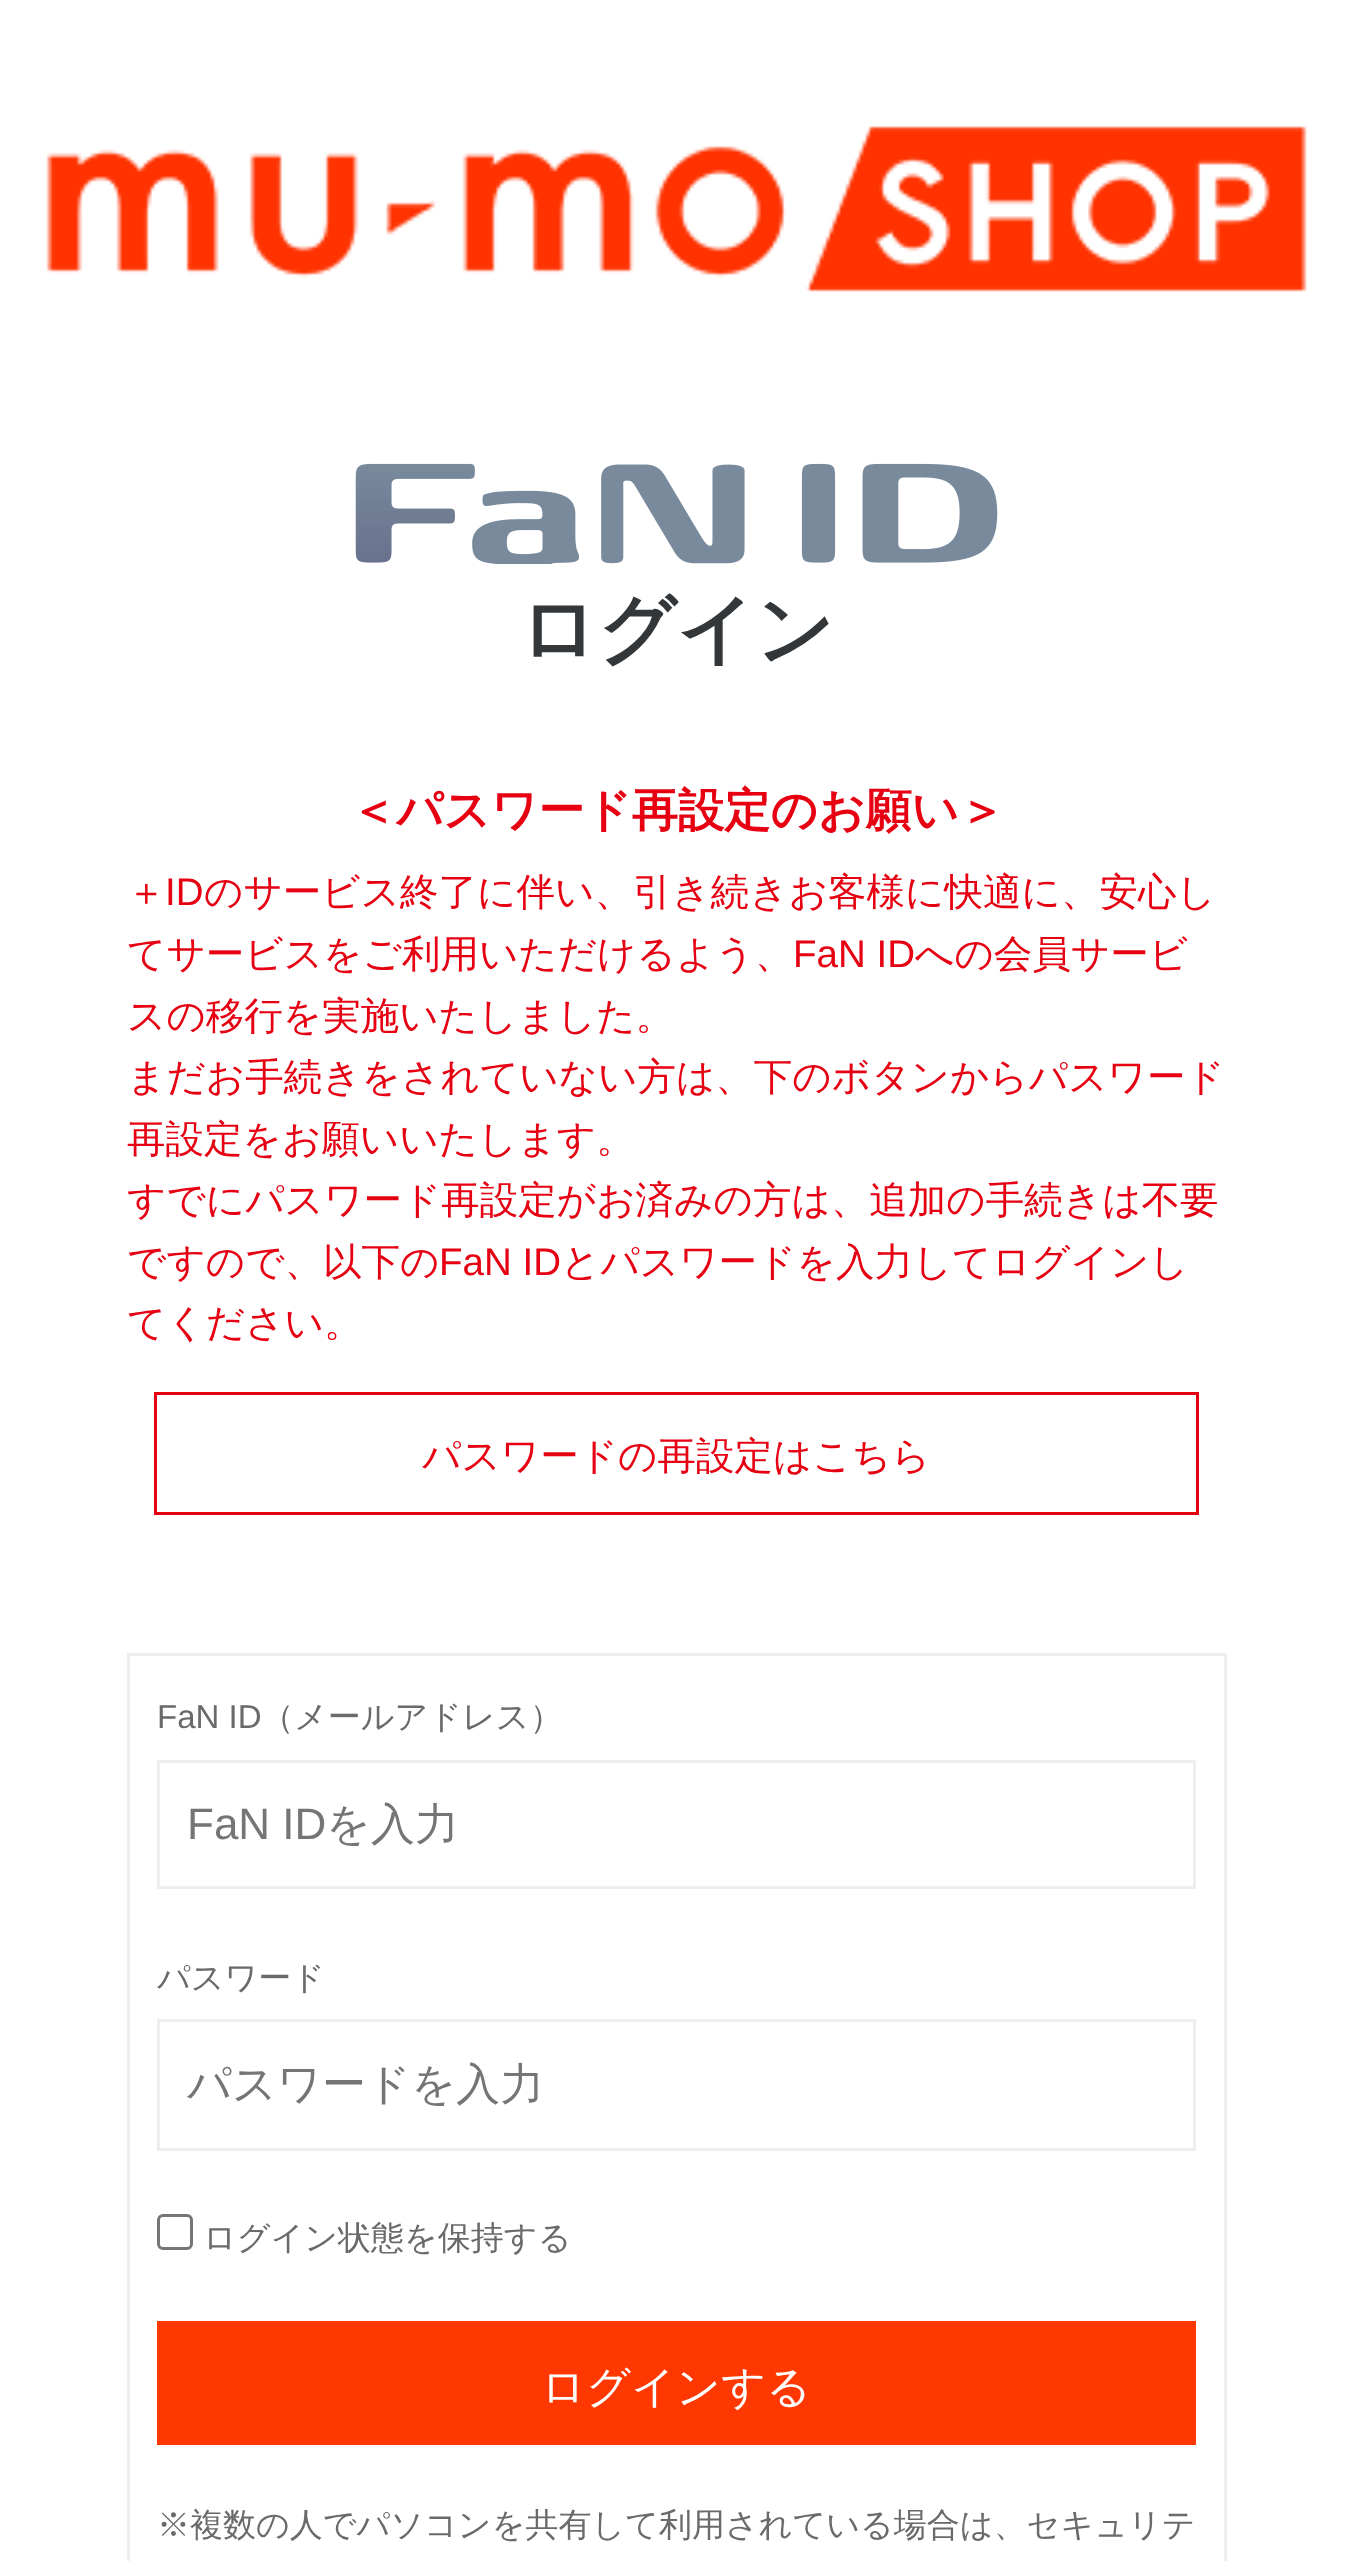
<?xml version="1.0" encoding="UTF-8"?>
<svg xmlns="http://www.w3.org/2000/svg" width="1352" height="2561">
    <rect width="100%" height="100%" fill="#FFFFFF"/>
    <image x="46" y="126" width="1261" height="166" href="img_01.png"/>
    <image x="355" y="463" width="643" height="101" href="img_02.png"/>
    <text x="519" y="656" font-family="WenQuanYi Zen Hei" font-size="77" font-weight="700" fill="#343739">ログイン</text>
    <text x="350" y="826" font-family="WenQuanYi Zen Hei" font-size="46.25" font-weight="700" fill="#E60012">＜パスワード再設定のお願い＞</text>
    <text x="127" y="905" font-family="WenQuanYi Zen Hei" font-size="38.5" font-weight="500" fill="#E60012">＋</text>
    <text x="165" y="905" font-family="Liberation Sans" font-size="38.5" fill="#E60012">ID</text>
    <text x="204" y="905" font-family="WenQuanYi Zen Hei" font-size="38.5" font-weight="500" fill="#E60012">のサービス終了に伴い、引き続きお客様に快適に、安心し</text>
    <text x="127" y="967" font-family="WenQuanYi Zen Hei" font-size="38.5" font-weight="500" fill="#E60012">てサービスをご利用いただけるよう、</text>
    <text x="793" y="967" font-family="Liberation Sans" font-size="38.5" fill="#E60012">FaN ID</text>
    <text x="915" y="967" font-family="WenQuanYi Zen Hei" font-size="38.5" font-weight="500" fill="#E60012">への会員サービ</text>
    <text font-family="WenQuanYi Zen Hei" font-size="38.5" font-weight="500" fill="#E60012">
        <tspan x="127" y="1029">スの移行を実施いたしました。</tspan>
        <tspan x="127" y="1090">まだお手続きをされていない方は、下のボタンからパスワード</tspan>
        <tspan x="127" y="1152">再設定をお願いいたします。</tspan>
        <tspan x="127" y="1213">すでにパスワード再設定がお済みの方は、追加の手続きは不要</tspan>
        <tspan x="127" y="1275">ですので、以下の</tspan>
    </text>
    <text x="439" y="1275" font-family="Liberation Sans" font-size="38.5" fill="#E60012">FaN ID</text>
    <text x="561" y="1275" font-family="WenQuanYi Zen Hei" font-size="38.5" font-weight="500" fill="#E60012">とパスワードを入力してログインし</text>
    <text x="127" y="1336" font-family="WenQuanYi Zen Hei" font-size="38.5" font-weight="500" fill="#E60012">てください。</text>
    <rect x="155.5" y="1393.5" width="1042" height="120" fill="none" stroke="#E60012" stroke-width="3"/>
    <text x="422" y="1469" font-family="WenQuanYi Zen Hei" font-size="38.5" font-weight="500" fill="#E60012">パスワードの再設定はこちら</text>
    <rect x="128.5" y="1654.5" width="1097" height="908" fill="none" stroke="#EEEEEE" stroke-width="3"/>
    <text x="157" y="1728" font-family="Liberation Sans" font-size="33" fill="#6A6A6A">FaN ID</text>
    <text x="261" y="1728" font-family="WenQuanYi Zen Hei" font-size="33" font-weight="500" fill="#6A6A6A">（メールアドレス）</text>
    <rect x="158.5" y="1761.5" width="1036" height="126" fill="none" stroke="#EEEEEE" stroke-width="3"/>
    <text x="187" y="1839" font-family="Liberation Sans" font-size="44" fill="#757575">FaN ID</text>
    <text x="326" y="1839" font-family="WenQuanYi Zen Hei" font-size="44" font-weight="500" fill="#757575">を入力</text>
    <text x="157" y="1989" font-family="WenQuanYi Zen Hei" font-size="33" font-weight="500" fill="#6A6A6A">パスワード</text>
    <rect x="158.5" y="2020.5" width="1036" height="129" fill="none" stroke="#EEEEEE" stroke-width="3"/>
    <text x="187" y="2099" font-family="WenQuanYi Zen Hei" font-size="44" font-weight="500" fill="#757575">パスワードを入力</text>
    <rect x="158.5" y="2215.5" width="33" height="33" rx="4.5" fill="none" stroke="#767676" stroke-width="3"/>
    <text x="203" y="2249" font-family="WenQuanYi Zen Hei" font-size="33" font-weight="500" fill="#6A6A6A">ログイン状態を保持する</text>
    <rect x="157" y="2321" width="1039" height="124" fill="#FF3700"/>
    <text x="541" y="2402" font-family="WenQuanYi Zen Hei" font-size="44" font-weight="500" fill="#FFFFFF">ログインする</text>
    <text x="157" y="2536" font-family="WenQuanYi Zen Hei" font-size="33" font-weight="500" fill="#6A6A6A">※複数の人でパソコンを共有して利用されている場合は、セキュリテ</text>
</svg>
